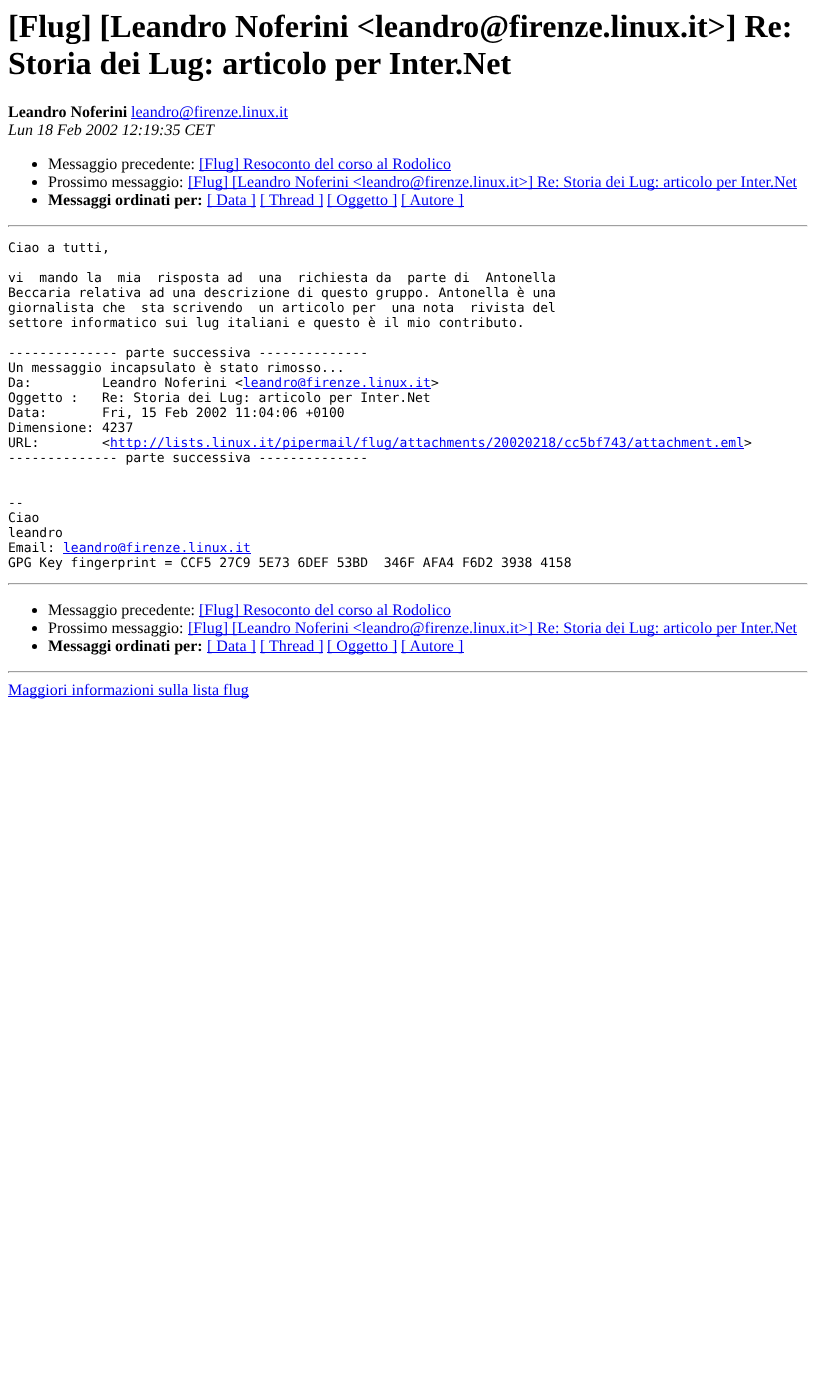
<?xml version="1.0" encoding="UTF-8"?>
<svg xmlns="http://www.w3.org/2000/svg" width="816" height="1375">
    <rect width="100%" height="100%" fill="#FFFFFF"/>
    <text font-family="Liberation Serif" font-size="32" font-weight="700" fill="#000000">
        <tspan x="8" y="37">[Flug] [Leandro Noferini &lt;leandro@firenze.linux.it&gt;] Re:</tspan>
        <tspan x="8" y="74">Storia dei Lug: articolo per Inter.Net</tspan>
    </text>
    <text x="8" y="117" font-family="Liberation Serif" font-size="16" font-weight="700" fill="#000000">Leandro Noferini</text>
    <rect x="131" y="118" width="157" height="1" fill="#0000EE"/>
    <text x="131" y="117" font-family="Liberation Serif" font-size="16" fill="#0000EE">leandro@firenze.linux.it</text>
    <text x="8" y="135" font-family="Liberation Serif" font-size="16" font-style="italic" fill="#000000">Lun 18 Feb 2002 12:19:35 CET</text>
    <circle cx="34.5" cy="164.5" r="2.5" fill="#000000"/>
    <text x="48" y="169" font-family="Liberation Serif" font-size="16" fill="#000000">Messaggio precedente:</text>
    <rect x="199" y="170" width="252" height="1" fill="#0000EE"/>
    <text x="199" y="169" font-family="Liberation Serif" font-size="16" fill="#0000EE">[Flug] Resoconto del corso al Rodolico</text>
    <circle cx="34.5" cy="182.5" r="2.5" fill="#000000"/>
    <text x="48" y="187" font-family="Liberation Serif" font-size="16" fill="#000000">Prossimo messaggio:</text>
    <rect x="188" y="188" width="609" height="1" fill="#0000EE"/>
    <text x="188" y="187" font-family="Liberation Serif" font-size="16" fill="#0000EE">[Flug] [Leandro Noferini &lt;leandro@firenze.linux.it&gt;] Re: Storia dei Lug: articolo per Inter.Net</text>
    <circle cx="34.5" cy="200.5" r="2.5" fill="#000000"/>
    <text x="48" y="205" font-family="Liberation Serif" font-size="16" font-weight="700" fill="#000000">Messaggi ordinati per:</text>
    <rect x="207" y="206" width="49" height="1" fill="#0000EE"/>
    <text x="207" y="205" font-family="Liberation Serif" font-size="16" fill="#0000EE">[ Data ]</text>
    <rect x="260" y="206" width="63" height="1" fill="#0000EE"/>
    <text x="260" y="205" font-family="Liberation Serif" font-size="16" fill="#0000EE">[ Thread ]</text>
    <rect x="327" y="206" width="70" height="1" fill="#0000EE"/>
    <text x="327" y="205" font-family="Liberation Serif" font-size="16" fill="#0000EE">[ Oggetto ]</text>
    <rect x="401" y="206" width="63" height="1" fill="#0000EE"/>
    <text x="401" y="205" font-family="Liberation Serif" font-size="16" fill="#0000EE">[ Autore ]</text>
    <rect x="8" y="225" width="800" height="1" fill="#9F9F9F"/>
    <rect x="807" y="225" width="1" height="2" fill="#EEEEEE"/>
    <rect x="8" y="226" width="800" height="1" fill="#EEEEEE"/>
    <rect x="8" y="225" width="1" height="2" fill="#9F9F9F"/>
    <text x="8" y="252" font-family="DejaVu Sans Mono" font-size="13" fill="#000000">Ciao a tutti,</text>
    <text font-family="DejaVu Sans Mono" font-size="13" fill="#000000" xml:space="preserve"><tspan x="8" y="282">vi  mando la  mia  risposta ad  una  richiesta da  parte di  Antonella</tspan><tspan x="8" y="297">Beccaria relativa ad una descrizione di questo gruppo. Antonella è una</tspan><tspan x="8" y="312">giornalista che  sta scrivendo  un articolo per  una nota  rivista del</tspan><tspan x="8" y="327">settore informatico sui lug italiani e questo è il mio contributo.</tspan></text>
    <text font-family="DejaVu Sans Mono" font-size="13" fill="#000000" xml:space="preserve"><tspan x="8" y="357">-------------- parte successiva --------------</tspan><tspan x="8" y="372">Un messaggio incapsulato è stato rimosso...</tspan><tspan x="8" y="387">Da:         Leandro Noferini &lt;</tspan></text>
    <rect x="243" y="388" width="188" height="1" fill="#0000EE"/>
    <text x="243" y="387" font-family="DejaVu Sans Mono" font-size="13" fill="#0000EE">leandro@firenze.linux.it</text>
    <text x="431" y="387" font-family="DejaVu Sans Mono" font-size="13" fill="#000000">&gt;</text>
    <text font-family="DejaVu Sans Mono" font-size="13" fill="#000000" xml:space="preserve"><tspan x="8" y="402">Oggetto :   Re: Storia dei Lug: articolo per Inter.Net</tspan><tspan x="8" y="417">Data:       Fri, 15 Feb 2002 11:04:06 +0100</tspan><tspan x="8" y="432">Dimensione: 4237</tspan><tspan x="8" y="447">URL:        &lt;</tspan></text>
    <rect x="110" y="448" width="634" height="1" fill="#0000EE"/>
    <text x="110" y="447" font-family="DejaVu Sans Mono" font-size="13" fill="#0000EE">http://lists.linux.it/pipermail/flug/attachments/20020218/cc5bf743/attachment.eml</text>
    <text x="744" y="447" font-family="DejaVu Sans Mono" font-size="13" fill="#000000">&gt;</text>
    <text x="8" y="462" font-family="DejaVu Sans Mono" font-size="13" fill="#000000">-------------- parte successiva --------------</text>
    <text font-family="DejaVu Sans Mono" font-size="13" fill="#000000">
        <tspan x="8" y="507">--</tspan>
        <tspan x="8" y="522">Ciao</tspan>
        <tspan x="8" y="537">leandro</tspan>
        <tspan x="8" y="552">Email:</tspan>
    </text>
    <rect x="63" y="553" width="188" height="1" fill="#0000EE"/>
    <text x="63" y="552" font-family="DejaVu Sans Mono" font-size="13" fill="#0000EE">leandro@firenze.linux.it</text>
    <text x="8" y="567" font-family="DejaVu Sans Mono" font-size="13" fill="#000000" xml:space="preserve">GPG Key fingerprint = CCF5 27C9 5E73 6DEF 53BD  346F AFA4 F6D2 3938 4158</text>
    <rect x="8" y="583" width="800" height="1" fill="#9F9F9F"/>
    <rect x="807" y="583" width="1" height="2" fill="#EEEEEE"/>
    <rect x="8" y="584" width="800" height="1" fill="#EEEEEE"/>
    <rect x="8" y="583" width="1" height="2" fill="#9F9F9F"/>
    <circle cx="34.5" cy="610.5" r="2.5" fill="#000000"/>
    <text x="48" y="615" font-family="Liberation Serif" font-size="16" fill="#000000">Messaggio precedente:</text>
    <rect x="199" y="616" width="252" height="1" fill="#0000EE"/>
    <text x="199" y="615" font-family="Liberation Serif" font-size="16" fill="#0000EE">[Flug] Resoconto del corso al Rodolico</text>
    <circle cx="34.5" cy="628.5" r="2.5" fill="#000000"/>
    <text x="48" y="633" font-family="Liberation Serif" font-size="16" fill="#000000">Prossimo messaggio:</text>
    <rect x="188" y="634" width="609" height="1" fill="#0000EE"/>
    <text x="188" y="633" font-family="Liberation Serif" font-size="16" fill="#0000EE">[Flug] [Leandro Noferini &lt;leandro@firenze.linux.it&gt;] Re: Storia dei Lug: articolo per Inter.Net</text>
    <circle cx="34.5" cy="646.5" r="2.5" fill="#000000"/>
    <text x="48" y="651" font-family="Liberation Serif" font-size="16" font-weight="700" fill="#000000">Messaggi ordinati per:</text>
    <rect x="207" y="652" width="49" height="1" fill="#0000EE"/>
    <text x="207" y="651" font-family="Liberation Serif" font-size="16" fill="#0000EE">[ Data ]</text>
    <rect x="260" y="652" width="63" height="1" fill="#0000EE"/>
    <text x="260" y="651" font-family="Liberation Serif" font-size="16" fill="#0000EE">[ Thread ]</text>
    <rect x="327" y="652" width="70" height="1" fill="#0000EE"/>
    <text x="327" y="651" font-family="Liberation Serif" font-size="16" fill="#0000EE">[ Oggetto ]</text>
    <rect x="401" y="652" width="63" height="1" fill="#0000EE"/>
    <text x="401" y="651" font-family="Liberation Serif" font-size="16" fill="#0000EE">[ Autore ]</text>
    <rect x="8" y="671" width="800" height="1" fill="#9F9F9F"/>
    <rect x="807" y="671" width="1" height="2" fill="#EEEEEE"/>
    <rect x="8" y="672" width="800" height="1" fill="#EEEEEE"/>
    <rect x="8" y="671" width="1" height="2" fill="#9F9F9F"/>
    <rect x="8" y="696" width="241" height="1" fill="#0000EE"/>
    <text x="8" y="695" font-family="Liberation Serif" font-size="16" fill="#0000EE">Maggiori informazioni sulla lista flug</text>
</svg>
